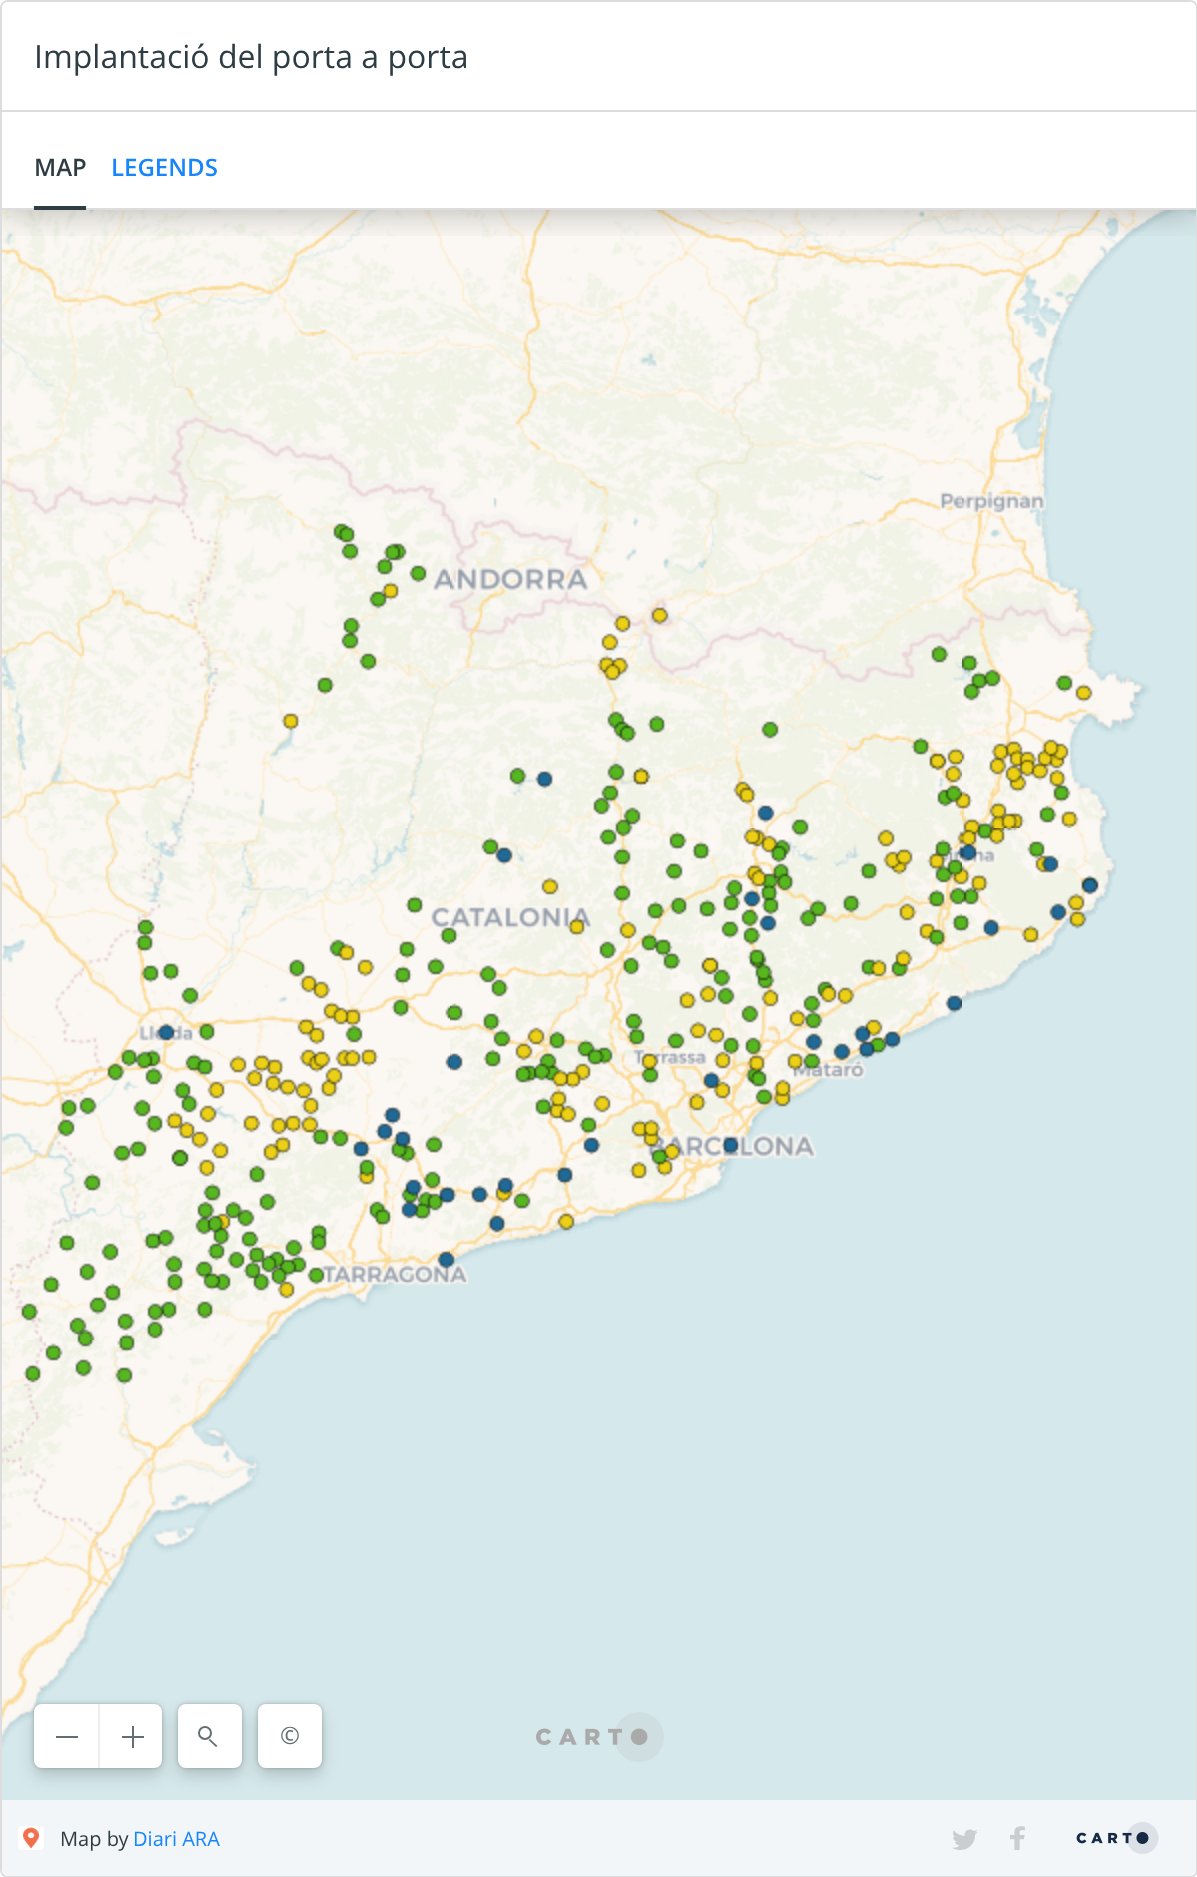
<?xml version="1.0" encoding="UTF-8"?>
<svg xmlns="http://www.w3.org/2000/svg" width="1197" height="1877">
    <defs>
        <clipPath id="clip1"><rect x="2" y="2" width="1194" height="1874" rx="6"/></clipPath>
        <clipPath id="clip2"><rect x="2" y="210" width="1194" height="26"/></clipPath>
        <filter id="blur1" x="-50%" y="-200%" width="200%" height="500%"><feGaussianBlur stdDeviation="16"/></filter>
        <filter id="blur2" x="-50%" y="-200%" width="200%" height="500%"><feGaussianBlur stdDeviation="8"/></filter>
        <filter id="blur3" x="-50%" y="-200%" width="200%" height="500%"><feGaussianBlur stdDeviation="2"/></filter>
    </defs>
    <rect width="100%" height="100%" fill="#FFFFFF"/>
    <rect x="1" y="1" width="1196" height="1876" rx="7" fill="none" stroke="#DDDDDD" stroke-width="2"/>
    <image x="2" y="210" width="448" height="106" href="img_01.png"/>
    <image x="450" y="210" width="512" height="106" href="img_02.png"/>
    <image x="962" y="210" width="234" height="106" href="img_03.png"/>
    <g clip-path="url(#clip1)">
        <g clip-path="url(#clip2)">
            <rect x="2" y="116" width="1194" height="98" fill="#000000" fill-opacity="0.24" filter="url(#blur1)"/>
        </g>
    </g>
    <path d="M 8 2 H 1190 C 1193.5 2 1196 4.5 1196 8 V 112 H 2 V 8 C 2 4.5 4.5 2 8 2 Z" fill="#FFFFFF"/>
    <rect x="2" y="110" width="1194" height="2" fill="#DDDDDD"/>
    <text x="34" y="68" font-family="Open Sans" font-size="32" fill="#2E3C43">Implantació del porta a porta</text>
    <rect x="2" y="208" width="1194" height="2" fill="#DDDDDD"/>
    <rect x="34" y="206" width="52" height="4" fill="#2E3C43"/>
    <text x="34" y="176" font-family="Open Sans" font-size="24" font-weight="600" fill="#2E3C43">MAP</text>
    <text x="111" y="176" font-family="Open Sans" font-size="24" font-weight="600" fill="#1785FB">LEGENDS</text>
    <image x="2" y="316" width="448" height="512" href="img_04.png"/>
    <image x="450" y="316" width="512" height="512" href="img_05.png"/>
    <image x="962" y="316" width="234" height="512" href="img_06.png"/>
    <image x="2" y="828" width="448" height="512" href="img_07.png"/>
    <image x="450" y="828" width="512" height="512" href="img_08.png"/>
    <image x="962" y="828" width="234" height="512" href="img_09.png"/>
    <image x="2" y="1340" width="448" height="460" href="img_10.png"/>
    <rect x="450" y="1340" width="746" height="460" fill="#D5E8EB"/>
    <image x="281" y="523" width="146" height="208" href="img_11.png"/>
    <image x="509" y="607" width="453" height="221" href="img_12.png"/>
    <image x="962" y="654" width="131" height="174" href="img_13.png"/>
    <image x="21" y="895" width="429" height="445" href="img_14.png"/>
    <image x="450" y="828" width="512" height="439" href="img_15.png"/>
    <image x="962" y="828" width="137" height="115" href="img_16.png"/>
    <image x="23" y="1340" width="112" height="45" href="img_17.png"/>
    <path d="M 2 1800 H 1196 V 1870 C 1196 1873.5 1193.5 1876 1190 1876 H 8 C 4.5 1876 2 1873.5 2 1870 Z" fill="#F2F6F9"/>
    <rect x="34" y="1712" width="128" height="64" rx="8" fill="#000000" fill-opacity="0.16" filter="url(#blur2)"/>
    <rect x="34" y="1704" width="128" height="64" rx="8" fill="#000000" fill-opacity="0.24" filter="url(#blur3)"/>
    <path d="M 42 1704 H 98 V 1768 H 42 C 37.5 1768 34 1764.5 34 1760 V 1712 C 34 1707.5 37.5 1704 42 1704 Z" fill="#FFFFFF"/>
    <rect x="56" y="1736" width="22" height="2" fill="#636D72"/>
    <path d="M 98 1704 H 154 C 158.5 1704 162 1707.5 162 1712 V 1760 C 162 1764.5 158.5 1768 154 1768 H 98 Z" fill="#FFFFFF"/>
    <rect x="98" y="1704" width="2" height="64" fill="#EEEEEE"/>
    <rect x="122" y="1736" width="22" height="2" fill="#636D72"/>
    <rect x="132" y="1726" width="2" height="22" fill="#636D72"/>
    <rect x="258" y="1712" width="64" height="64" rx="8" fill="#000000" fill-opacity="0.16" filter="url(#blur2)"/>
    <rect x="258" y="1704" width="64" height="64" rx="8" fill="#000000" fill-opacity="0.24" filter="url(#blur3)"/>
    <rect x="258" y="1704" width="64" height="64" rx="8" fill="#FFFFFF"/>
    <rect x="178" y="1712" width="64" height="64" rx="8" fill="#000000" fill-opacity="0.16" filter="url(#blur2)"/>
    <rect x="178" y="1704" width="64" height="64" rx="8" fill="#000000" fill-opacity="0.24" filter="url(#blur3)"/>
    <rect x="178" y="1704" width="64" height="64" rx="8" fill="#FFFFFF"/>
    <circle cx="205" cy="1733" r="6" fill="none" stroke="#636D72" stroke-width="2"/>
    <path d="M 208.5 1740 L 210 1739 L 217.5 1746 L 216 1747 Z" fill="#636D72"/>
    <text x="280" y="1744" font-family="Open Sans" font-size="24" fill="#636D72">©</text>
    <image x="536" y="1712" width="128" height="50" href="img_18.png"/>
    <image x="18" y="1826" width="26" height="24" href="img_19.png"/>
    <text x="60" y="1846" font-family="Open Sans" font-size="20" fill="#2E3C43">Map by</text>
    <text x="133" y="1846" font-family="Open Sans" font-size="20" fill="#1785FB">Diari ARA</text>
    <image x="952" y="1829" width="26" height="21" href="img_20.png"/>
    <image x="1010" y="1826" width="15" height="24" href="img_21.png"/>
    <image x="1076" y="1822" width="83" height="32" href="img_22.png"/>
</svg>
